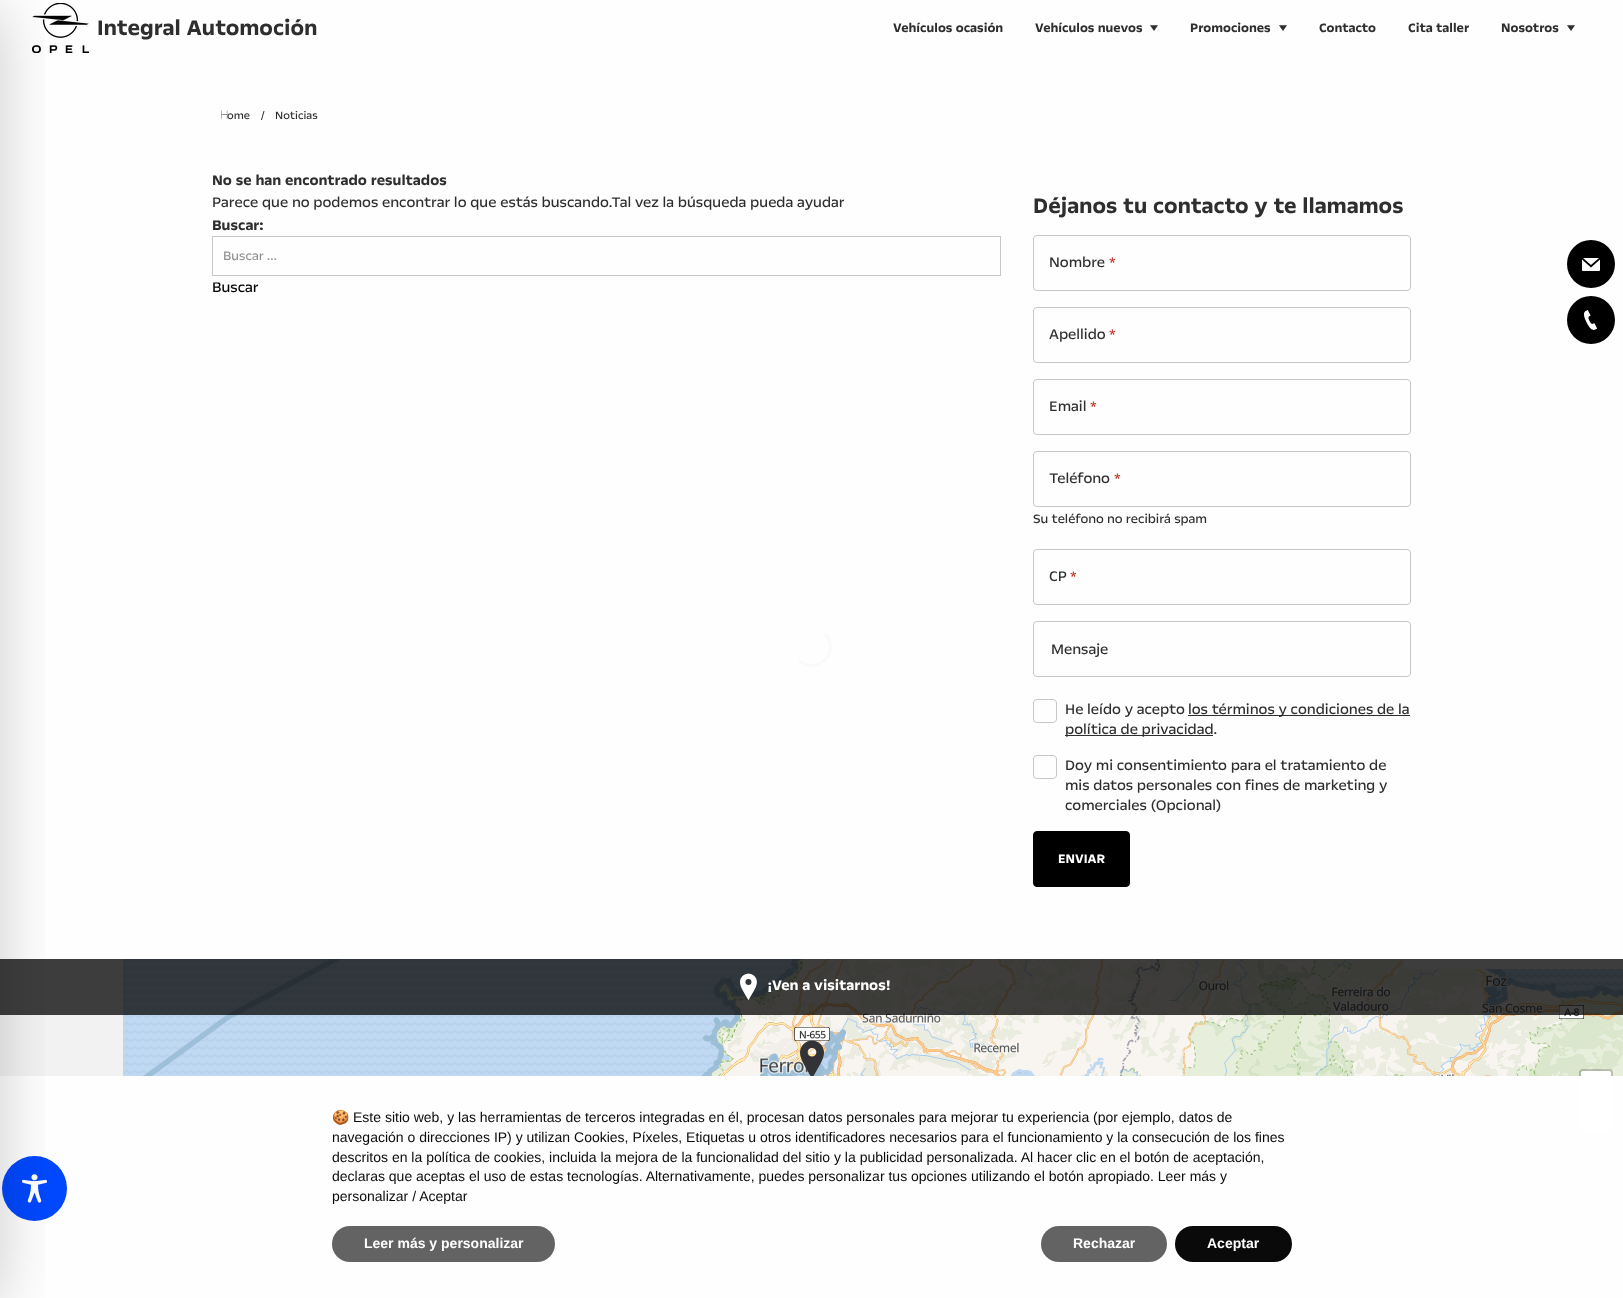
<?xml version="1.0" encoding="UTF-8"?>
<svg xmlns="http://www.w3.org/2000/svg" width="1623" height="1298">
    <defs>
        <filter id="blur1" x="-50%" y="-200%" width="200%" height="500%"><feGaussianBlur stdDeviation="30"/></filter>
    </defs>
    <rect width="100%" height="100%" fill="#FEFEFE"/>
    <image x="32" y="3" width="57" height="50" href="img_01.png"/>
    <rect x="0" y="959" width="1623" height="117" fill="#F2F2F2"/>
    <image x="123" y="959" width="256" height="10" href="img_05.png"/>
    <image x="379" y="959" width="256" height="10" href="img_06.png"/>
    <image x="635" y="959" width="256" height="10" href="img_07.png"/>
    <image x="891" y="959" width="256" height="10" href="img_08.png"/>
    <image x="1147" y="959" width="256" height="10" href="img_09.png"/>
    <image x="123" y="969" width="256" height="107" href="img_10.png"/>
    <image x="379" y="969" width="256" height="107" href="img_11.png"/>
    <image x="635" y="969" width="256" height="107" href="img_12.png"/>
    <image x="891" y="969" width="256" height="107" href="img_13.png"/>
    <image x="1147" y="969" width="256" height="107" href="img_14.png"/>
    <image x="1403" y="969" width="220" height="107" href="img_15.png"/>
    <rect x="0" y="959" width="1623" height="56" fill="#000000" fill-opacity="0.75"/>
    <circle cx="34.5" cy="1188.5" r="32.5" fill="#0048FE"/>
    <image x="22" y="1174" width="25" height="29" href="img_18.png"/>
    <rect x="-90" y="10" width="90" height="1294" fill="#000000" fill-opacity="0.2" filter="url(#blur1)"/>
    <text x="97" y="35" font-family="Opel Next" font-size="24" font-weight="700" fill="#2E2E2E">Integral Automoción</text>
    <text x="893" y="32" font-family="Opel Next" font-size="14" font-weight="700" fill="#2E2E2E">Vehículos ocasión</text>
    <text x="1035" y="32" font-family="Opel Next" font-size="14" font-weight="700" fill="#2E2E2E">Vehículos nuevos</text>
    <image x="1150" y="25" width="8" height="6" href="img_02.png"/>
    <text x="1190" y="32" font-family="Opel Next" font-size="14" font-weight="700" fill="#2E2E2E">Promociones</text>
    <image x="1279" y="25" width="8" height="6" href="img_02.png"/>
    <text x="1319" y="32" font-family="Opel Next" font-size="14" font-weight="700" fill="#2E2E2E">Contacto</text>
    <text x="1408" y="32" font-family="Opel Next" font-size="14" font-weight="700" fill="#2E2E2E">Cita taller</text>
    <text x="1501" y="32" font-family="Opel Next" font-size="14" font-weight="700" fill="#2E2E2E">Nosotros</text>
    <image x="1567" y="25" width="8" height="6" href="img_02.png"/>
    <text x="220" y="119" font-family="Noto Sans" font-size="12" font-weight="100" fill="#2E2E2E">H</text>
    <text x="227" y="119" font-family="Opel Next" font-size="12" fill="#2E2E2E">ome</text>
    <text x="261" y="119" font-family="Opel Next" font-size="12" fill="#2E2E2E">/</text>
    <text x="275" y="119" font-family="Opel Next" font-size="12" fill="#2E2E2E">Noticias</text>
    <text x="212" y="185" font-family="Opel Next" font-size="16" font-weight="700" fill="#2E2E2E">No se han encontrado resultados</text>
    <text x="212" y="207" font-family="Opel Next" font-size="16" fill="#2E2E2E">Parece que no podemos encontrar lo que estás buscando.Tal vez la búsqueda pueda ayudar</text>
    <text x="212" y="230" font-family="Opel Next" font-size="16" font-weight="700" fill="#2E2E2E">Buscar:</text>
    <rect x="212.5" y="236.5" width="788" height="39" fill="none" stroke="#C7C7C7"/>
    <text x="223" y="260" font-family="Opel Next" font-size="14" fill="#949494">Buscar …</text>
    <text x="212" y="292" font-family="Opel Next" font-size="16" fill="#000000">Buscar</text>
    <text x="1033" y="213" font-family="Opel Next" font-size="24" font-weight="700" fill="#2E2E2E">Déjanos tu contacto y te llamamos</text>
    <rect x="1033.5" y="235.5" width="377" height="55" rx="3.5" fill="none" stroke="#C7C7C7"/>
    <text x="1049" y="267" font-family="Opel Next" font-size="16" fill="#2E2E2E">Nombre</text>
    <text x="1109" y="267" font-family="Opel Next" font-size="16" fill="#C22A1B">*</text>
    <rect x="1033.5" y="307.5" width="377" height="55" rx="3.5" fill="none" stroke="#C7C7C7"/>
    <text x="1049" y="339" font-family="Opel Next" font-size="16" fill="#2E2E2E">Apellido</text>
    <text x="1109" y="339" font-family="Opel Next" font-size="16" fill="#C22A1B">*</text>
    <rect x="1033.5" y="379.5" width="377" height="55" rx="3.5" fill="none" stroke="#C7C7C7"/>
    <text x="1049" y="411" font-family="Opel Next" font-size="16" fill="#2E2E2E">Email</text>
    <text x="1090" y="411" font-family="Opel Next" font-size="16" fill="#C22A1B">*</text>
    <rect x="1033.5" y="451.5" width="377" height="55" rx="3.5" fill="none" stroke="#C7C7C7"/>
    <text x="1049" y="483" font-family="Opel Next" font-size="16" fill="#2E2E2E">Teléfono</text>
    <text x="1114" y="483" font-family="Opel Next" font-size="16" fill="#C22A1B">*</text>
    <text x="1033" y="523" font-family="Opel Next" font-size="14" fill="#2E2E2E">Su teléfono no recibirá spam</text>
    <rect x="1033.5" y="549.5" width="377" height="55" rx="3.5" fill="none" stroke="#C7C7C7"/>
    <text x="1049" y="581" font-family="Opel Next" font-size="16" fill="#2E2E2E">CP</text>
    <text x="1070" y="581" font-family="Opel Next" font-size="16" fill="#C22A1B">*</text>
    <rect x="1033.5" y="621.5" width="377" height="55" rx="3.5" fill="none" stroke="#C7C7C7"/>
    <text x="1051" y="654" font-family="Opel Next" font-size="16" fill="#2E2E2E">Mensaje</text>
    <rect x="1033.5" y="699.5" width="23" height="23" rx="3.5" fill="none" stroke="#C7C7C7"/>
    <text x="1065" y="714" font-family="Opel Next" font-size="16" fill="#2E2E2E">He leído y acepto</text>
    <rect x="1188" y="715" width="222" height="1" fill="#2E2E2E"/>
    <text x="1188" y="714" font-family="Opel Next" font-size="16" fill="#2E2E2E">los términos y condiciones de la</text>
    <rect x="1065" y="735" width="148" height="1" fill="#2E2E2E"/>
    <text x="1065" y="734" font-family="Opel Next" font-size="16" fill="#2E2E2E">política de privacidad.</text>
    <rect x="1033.5" y="755.5" width="23" height="23" rx="3.5" fill="none" stroke="#C7C7C7"/>
    <text font-family="Opel Next" font-size="16" fill="#2E2E2E">
        <tspan x="1065" y="770">Doy mi consentimiento para el tratamiento de</tspan>
        <tspan x="1065" y="790">mis datos personales con fines de marketing y</tspan>
        <tspan x="1065" y="810">comerciales (Opcional)</tspan>
    </text>
    <rect x="1033.5" y="831.5" width="96" height="55" rx="3.5" fill="#000000" stroke="#000000"/>
    <text x="1058" y="863" font-family="Opel Next" font-size="14" font-weight="700" fill="#FFFFFF">ENVIAR</text>
    <circle cx="1591" cy="264" r="24" fill="#000000"/>
    <image x="1582" y="258" width="18" height="13" href="img_03.png"/>
    <circle cx="1591" cy="320" r="24" fill="#000000"/>
    <image x="1584" y="310" width="13" height="20" href="img_04.png"/>
    <path d="M 825 634 C 827.5 636.5 829.5 640 830 643.5 C 833.5 661 811.5 673 799 660" fill="none" stroke="#FAFAFA" stroke-width="3"/>
    <image x="800" y="1040" width="24" height="36" href="img_16.png"/>
    <rect x="1580" y="1070" width="32" height="62" rx="3" fill="none" stroke="#000000" stroke-opacity="0.2" stroke-width="2"/>
    <path d="M 1583 1071 H 1609 C 1610 1071 1611 1072 1611 1073 V 1101 H 1581 V 1073 C 1581 1072 1582 1071 1583 1071 Z" fill="#FFFFFF"/>
    <image x="740" y="973" width="17" height="28" href="img_17.png"/>
    <text x="767" y="990" font-family="Opel Next" font-size="16" font-weight="700" fill="#FFFFFF">¡Ven a visitarnos!</text>
    <rect x="1579" y="1076" width="34" height="57" fill="#FFFFFF"/>
    <text x="332" y="1122" font-family="Noto Color Emoji" font-size="14" fill="#0A0A0A">🍪</text>
    <text x="353" y="1122" font-family="Liberation Sans" font-size="14" fill="#0A0A0A">Este sitio web, y las herramientas de terceros integradas en él, procesan datos personales para mejorar tu experiencia (por ejemplo, datos de</text>
    <text font-family="Liberation Sans" font-size="14" fill="#0A0A0A">
        <tspan x="332" y="1142">navegación o direcciones IP) y utilizan Cookies, Píxeles, Etiquetas u otros identificadores necesarios para el funcionamiento y la consecución de los fines</tspan>
        <tspan x="332" y="1162">descritos en la política de cookies, incluida la mejora de la funcionalidad del sitio y la publicidad personalizada. Al hacer clic en el botón de aceptación,</tspan>
        <tspan x="332" y="1181">declaras que aceptas el uso de estas tecnologías. Alternativamente, puedes personalizar tus opciones utilizando el botón apropiado. Leer más y</tspan>
        <tspan x="332" y="1201">personalizar / Aceptar</tspan>
    </text>
    <rect x="332" y="1226" width="223" height="36" rx="18" fill="#636363"/>
    <text x="364" y="1248" font-family="Liberation Sans" font-size="14" font-weight="700" fill="#FFFFFF">Leer más y personalizar</text>
    <rect x="1041" y="1226" width="126" height="36" rx="18" fill="#636363"/>
    <text x="1073" y="1248" font-family="Liberation Sans" font-size="14" font-weight="700" fill="#FFFFFF">Rechazar</text>
    <rect x="1175" y="1226" width="117" height="36" rx="18" fill="#0A0A0A"/>
    <text x="1207" y="1248" font-family="Liberation Sans" font-size="14" font-weight="700" fill="#FFFFFF">Aceptar</text>
</svg>
